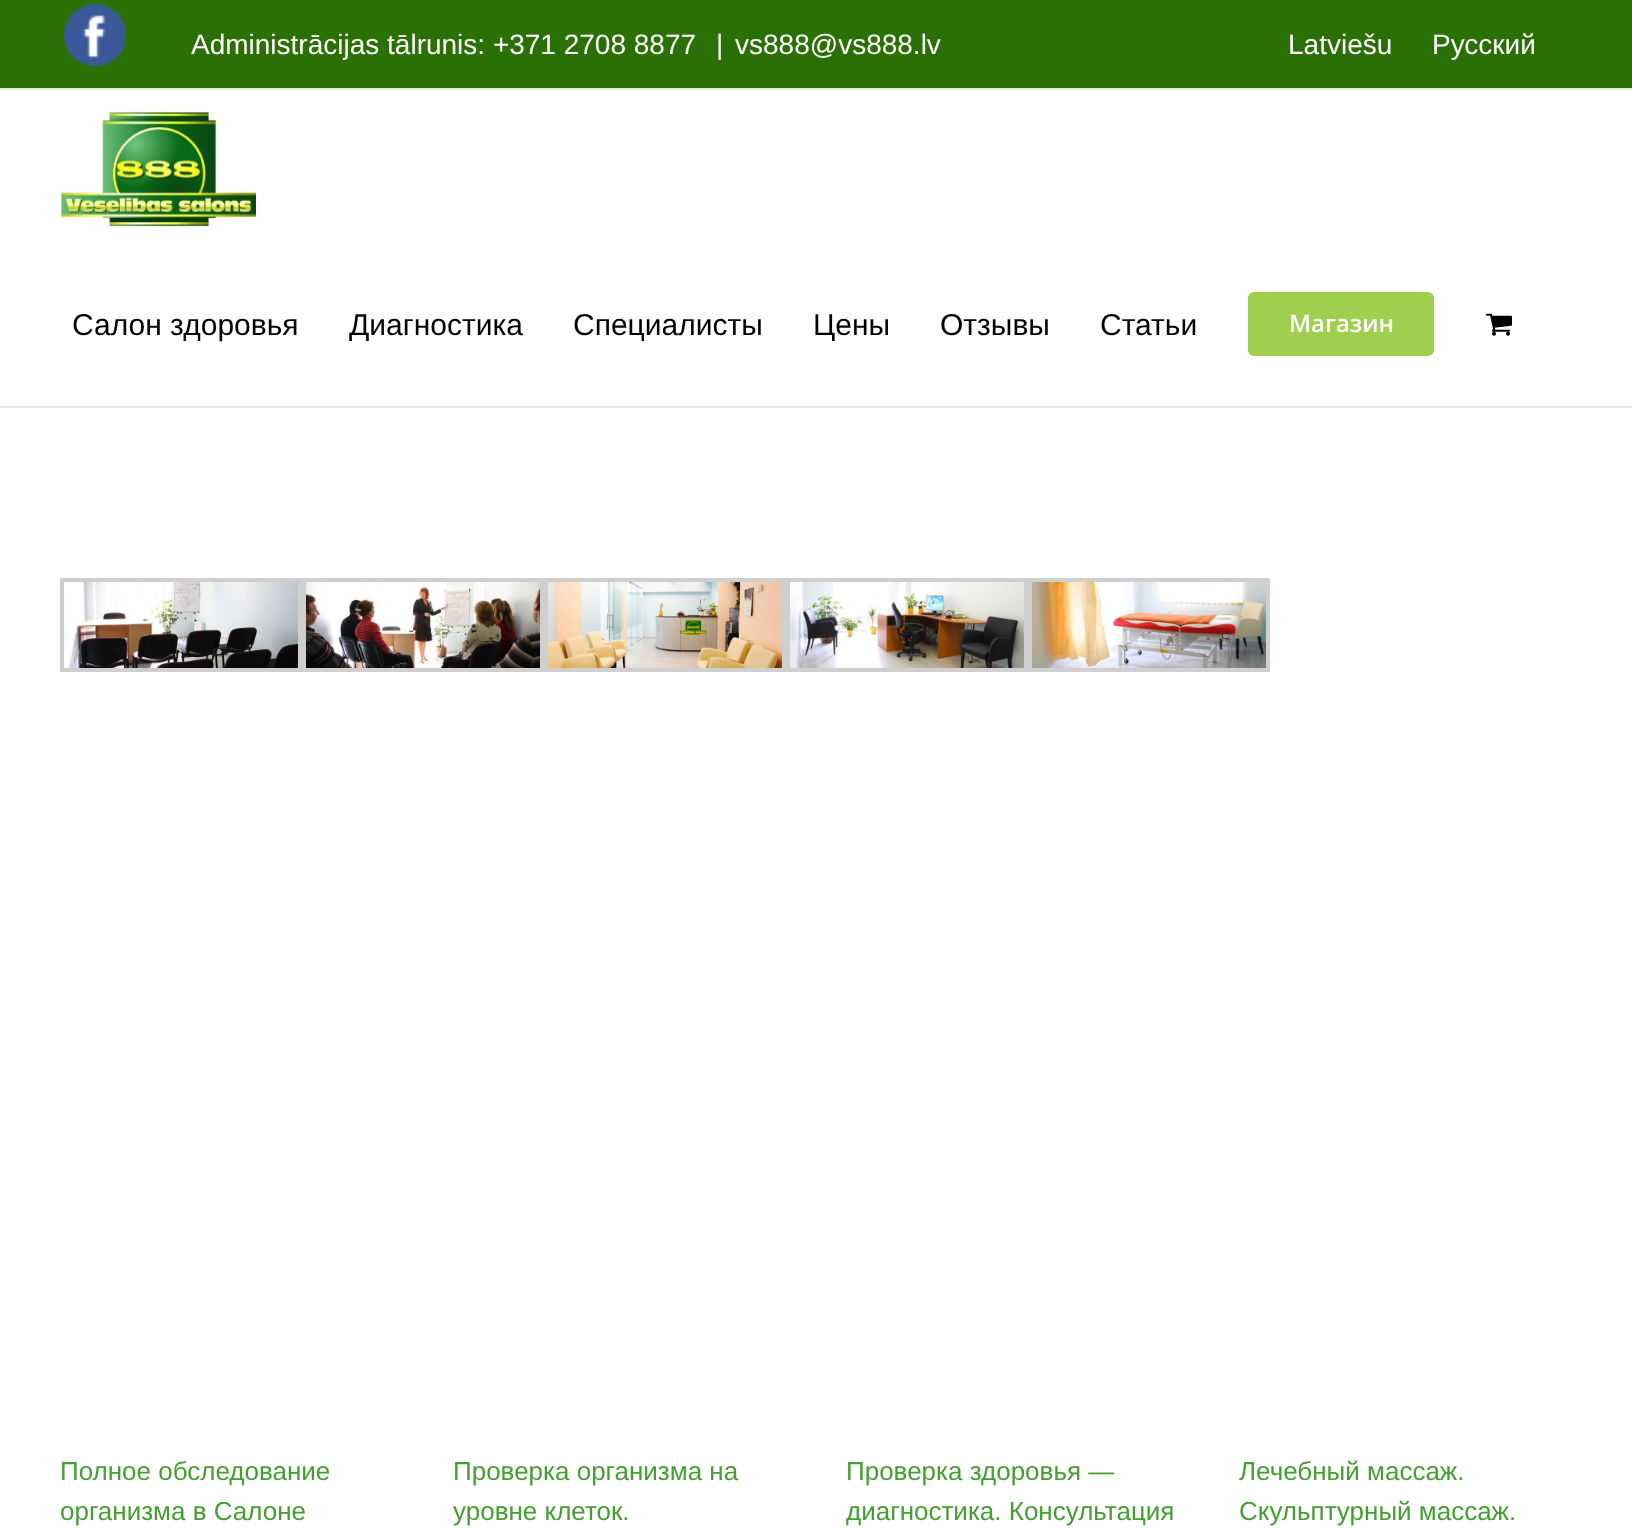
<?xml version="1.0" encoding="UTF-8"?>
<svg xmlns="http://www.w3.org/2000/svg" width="1632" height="1530">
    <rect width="100%" height="100%" fill="#FFFFFF"/>
    <rect x="0" y="0" width="1632" height="88" fill="#2B7004"/>
    <rect x="0" y="88" width="1632" height="2" fill="#E5E5E5"/>
    <image x="64" y="4" width="62" height="62" href="img_01.png"/>
    <text x="191" y="54" font-family="Liberation Sans" font-size="28" fill="#FFFFFF">Administrācijas tālrunis: +371 2708 8877</text>
    <text x="716" y="54" font-family="Liberation Sans" font-size="28" fill="#FFFFFF">|</text>
    <text x="735" y="54" font-family="Liberation Sans" font-size="28" fill="#FFFFFF">vs888@vs888.lv</text>
    <text x="1288" y="54" font-family="Liberation Sans" font-size="28" fill="#FFFFFF">Latviešu</text>
    <text x="1432" y="54" font-family="Liberation Sans" font-size="28" fill="#FFFFFF">Русский</text>
    <rect x="0" y="406" width="1632" height="2" fill="#E5E5E5"/>
    <image x="61" y="110" width="195" height="117" href="img_02.png"/>
    <text x="72" y="335" font-family="Liberation Sans" font-size="30" fill="#000000">Салон здоровья</text>
    <text x="349" y="335" font-family="Liberation Sans" font-size="30" fill="#000000">Диагностика</text>
    <text x="573" y="335" font-family="Liberation Sans" font-size="30" fill="#000000">Специалисты</text>
    <text x="813" y="335" font-family="Liberation Sans" font-size="30" fill="#000000">Цены</text>
    <text x="940" y="335" font-family="Liberation Sans" font-size="30" fill="#000000">Отзывы</text>
    <text x="1100" y="335" font-family="Liberation Sans" font-size="30" fill="#000000">Статьи</text>
    <rect x="1247" y="291" width="188" height="66" rx="7" fill="#A0CE4E" stroke="#FFFFFF" stroke-width="2"/>
    <text x="1289" y="332" font-family="Open Sans" font-size="24" font-weight="600" fill="#FFFFFF">Mагазин</text>
    <image x="1486" y="313" width="26" height="23" href="img_03.png"/>
    <rect x="62" y="580" width="238" height="90" fill="none" stroke="#CFCFCF" stroke-width="4"/>
    <image x="64" y="582" width="234" height="86" href="img_04.png"/>
    <rect x="304" y="580" width="238" height="90" fill="none" stroke="#CFCFCF" stroke-width="4"/>
    <image x="306" y="582" width="234" height="86" href="img_05.png"/>
    <rect x="546" y="580" width="238" height="90" fill="none" stroke="#CFCFCF" stroke-width="4"/>
    <image x="548" y="582" width="234" height="86" href="img_06.png"/>
    <rect x="788" y="580" width="238" height="90" fill="none" stroke="#CFCFCF" stroke-width="4"/>
    <image x="790" y="582" width="234" height="86" href="img_07.png"/>
    <rect x="1030" y="580" width="238" height="90" fill="none" stroke="#CFCFCF" stroke-width="4"/>
    <image x="1032" y="582" width="234" height="86" href="img_08.png"/>
    <text font-family="Liberation Sans" font-size="26" fill="#459E31">
        <tspan x="60" y="1480">Полное обследование</tspan>
        <tspan x="60" y="1520">организма в Салоне</tspan>
    </text>
    <text font-family="Liberation Sans" font-size="26" fill="#459E31">
        <tspan x="453" y="1480">Проверка организма на</tspan>
        <tspan x="453" y="1520">уровне клеток.</tspan>
    </text>
    <text font-family="Liberation Sans" font-size="26" fill="#459E31">
        <tspan x="846" y="1480">Проверка здоровья —</tspan>
        <tspan x="846" y="1520">диагностика. Консультация</tspan>
    </text>
    <text font-family="Liberation Sans" font-size="26" fill="#459E31">
        <tspan x="1239" y="1480">Лечебный массаж.</tspan>
        <tspan x="1239" y="1520">Скульптурный массаж.</tspan>
    </text>
</svg>
